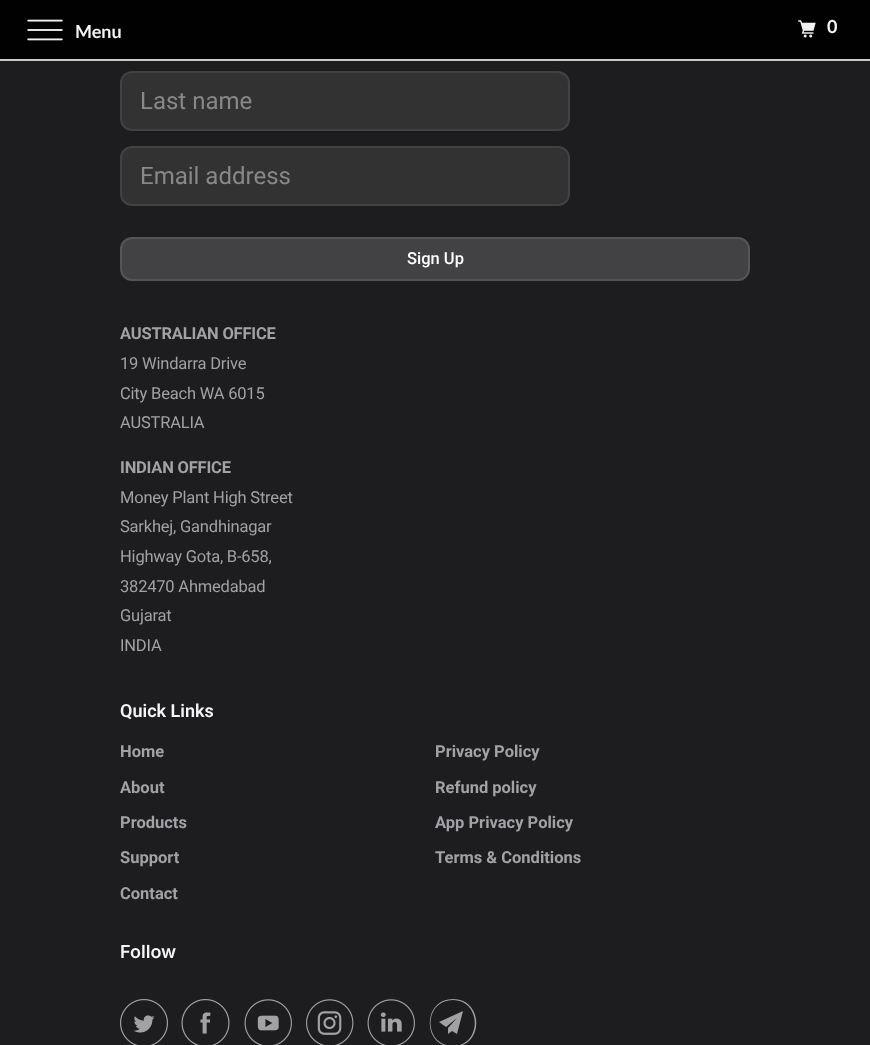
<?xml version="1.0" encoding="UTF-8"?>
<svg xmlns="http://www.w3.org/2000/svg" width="870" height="1045">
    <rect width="100%" height="100%" fill="#1D1D1F"/>
    <rect x="0" y="59" width="870" height="2" fill="#C9C9CE"/>
    <rect x="0" y="0" width="870" height="59" fill="#010102"/>
    <image x="27" y="19" width="36" height="22" href="img_01.png"/>
    <text x="75" y="38" font-family="Lato" font-size="18" font-weight="700" fill="#F5F5F7">Menu</text>
    <image x="798" y="20" width="18" height="18" href="img_02.png"/>
    <text x="827" y="33" font-family="Lato" font-size="18" font-weight="700" fill="#F5F5F7">0</text>
    <rect x="121" y="72" width="448" height="58" rx="11" fill="#323232" stroke="#424245" stroke-width="2"/>
    <text x="140" y="109" font-family="Roboto" font-size="24" fill="#888888">Last name</text>
    <rect x="121" y="147" width="448" height="58" rx="11" fill="#323232" stroke="#424245" stroke-width="2"/>
    <text x="140" y="184" font-family="Roboto" font-size="24" fill="#888888">Email address</text>
    <rect x="121" y="238" width="628" height="42" rx="11" fill="#424245" stroke="#555559" stroke-width="2"/>
    <text x="407" y="264" font-family="Roboto" font-size="16.5" font-weight="500" fill="#FFFFFF">Sign Up</text>
    <text x="120" y="339" font-family="Roboto" font-size="16.5" font-weight="700" letter-spacing="-0.2" fill="#A1A1A6">AUSTRALIAN OFFICE</text>
    <text font-family="Roboto" font-size="16.5" letter-spacing="-0.2" fill="#A1A1A6">
        <tspan x="120" y="369">19 Windarra Drive</tspan>
        <tspan x="120" y="399">City Beach WA 6015</tspan>
        <tspan x="120" y="428">AUSTRALIA</tspan>
    </text>
    <text x="120" y="473" font-family="Roboto" font-size="16.5" font-weight="700" letter-spacing="-0.2" fill="#A1A1A6">INDIAN OFFICE</text>
    <text font-family="Roboto" font-size="16.5" letter-spacing="-0.2" fill="#A1A1A6">
        <tspan x="120" y="503">Money Plant High Street</tspan>
        <tspan x="120" y="532">Sarkhej, Gandhinagar</tspan>
        <tspan x="120" y="562">Highway Gota, B-658,</tspan>
        <tspan x="120" y="592">382470 Ahmedabad</tspan>
        <tspan x="120" y="621">Gujarat</tspan>
        <tspan x="120" y="651">INDIA</tspan>
    </text>
    <text x="120" y="717" font-family="Roboto" font-size="18" font-weight="600" fill="#F5F5F7">Quick Links</text>
    <text x="120" y="757" font-family="Roboto" font-size="16.5" font-weight="700" fill="#A1A1A6">Home</text>
    <text x="435" y="757" font-family="Roboto" font-size="16.5" font-weight="700" fill="#A1A1A6">Privacy Policy</text>
    <text x="120" y="793" font-family="Roboto" font-size="16.5" font-weight="700" fill="#A1A1A6">About</text>
    <text x="435" y="793" font-family="Roboto" font-size="16.5" font-weight="700" fill="#A1A1A6">Refund policy</text>
    <text x="120" y="828" font-family="Roboto" font-size="16.5" font-weight="700" fill="#A1A1A6">Products</text>
    <text x="435" y="828" font-family="Roboto" font-size="16.5" font-weight="700" fill="#A1A1A6">App Privacy Policy</text>
    <text x="120" y="863" font-family="Roboto" font-size="16.5" font-weight="700" fill="#A1A1A6">Support</text>
    <text x="435" y="863" font-family="Roboto" font-size="16.5" font-weight="700" fill="#A1A1A6">Terms &amp; Conditions</text>
    <text x="120" y="899" font-family="Roboto" font-size="16.5" font-weight="700" fill="#A1A1A6">Contact</text>
    <text x="120" y="958" font-family="Inter" font-size="18" font-weight="600" fill="#F5F5F7">Follow</text>
    <image x="120" y="999" width="48" height="46" href="img_03.png"/>
    <image x="181" y="999" width="49" height="46" href="img_04.png"/>
    <image x="244" y="999" width="48" height="46" href="img_05.png"/>
    <image x="306" y="999" width="48" height="46" href="img_06.png"/>
    <image x="367" y="999" width="48" height="46" href="img_07.png"/>
    <path d="M 457 1034 L 452 1031 L 448 1034 V 1028 L 457 1018 L 446 1027 L 439 1022 L 463 1011 Z M 453 1000 C 423 1000 423 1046 453 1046 C 482 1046 482 1000 453 1000 Z M 453 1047 C 422 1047 422 999 453 999 C 484 999 484 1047 453 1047 Z" fill="#A1A1A6"/>
</svg>
